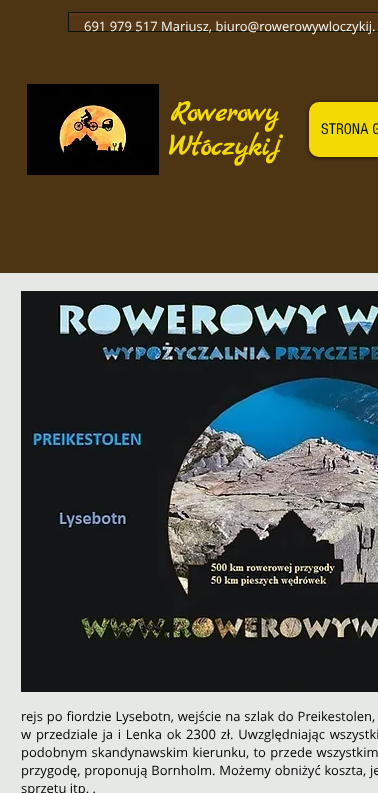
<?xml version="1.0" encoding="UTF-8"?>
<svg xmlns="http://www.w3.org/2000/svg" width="378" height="793">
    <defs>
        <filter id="blur1" x="-50%" y="-200%" width="200%" height="500%"><feGaussianBlur stdDeviation="2"/></filter>
    </defs>
    <rect width="100%" height="100%" fill="#4D3413"/>
    <rect x="69" y="13" width="309" height="18" fill="#5D3C17"/>
    <image x="69" y="15" width="309" height="16" href="img_01.png"/>
    <rect x="68.5" y="12.5" width="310" height="19" fill="none" stroke="#091405"/>
    <text x="84" y="31" font-family="Open Sans" font-size="13" fill="#F6F9F5">691 979 517 Mariusz, biuro@rowerowywloczykij.</text>
    <image x="27" y="84" width="132" height="91" href="img_02.png"/>
    <text x="170" y="121" font-family="Marck Script" font-size="30" font-weight="700" fill="#F2DA02">Rowerowy</text>
    <text x="168" y="155" font-family="Marck Script" font-size="30" font-weight="700" fill="#F2DA02">Włóczykij</text>
    <rect x="309" y="103" width="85" height="55" rx="10" fill="#000000" fill-opacity="0.6" filter="url(#blur1)"/>
    <rect x="309" y="102" width="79" height="55" rx="10" fill="#F2DA02"/>
    <text x="321" y="134" font-family="'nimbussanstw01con'" font-size="16" fill="#091405">STRONA G</text>
    <rect x="0" y="273" width="378" height="520" fill="#E6E8E6"/>
    <image x="21" y="291" width="357" height="401" href="img_03.png"/>
    <text font-family="Open Sans" font-size="13" fill="#000000">
        <tspan x="21" y="721" word-spacing="0.5">rejs po fiordzie Lysebotn, wejście na szlak do Preikestolen,</tspan>
        <tspan x="21" y="739" word-spacing="1.4">w przedziale ja i Lenka ok 2300 zł. Uwzględniając wszystki</tspan>
        <tspan x="21" y="757" word-spacing="1">podobnym skandynawskim kierunku, to przede wszystkim</tspan>
        <tspan x="21" y="775" word-spacing="0.5">przygodę, proponują Bornholm. Możemy obniżyć koszta, je</tspan>
        <tspan x="21" y="793">sprzętu itp. .</tspan>
    </text>
</svg>
